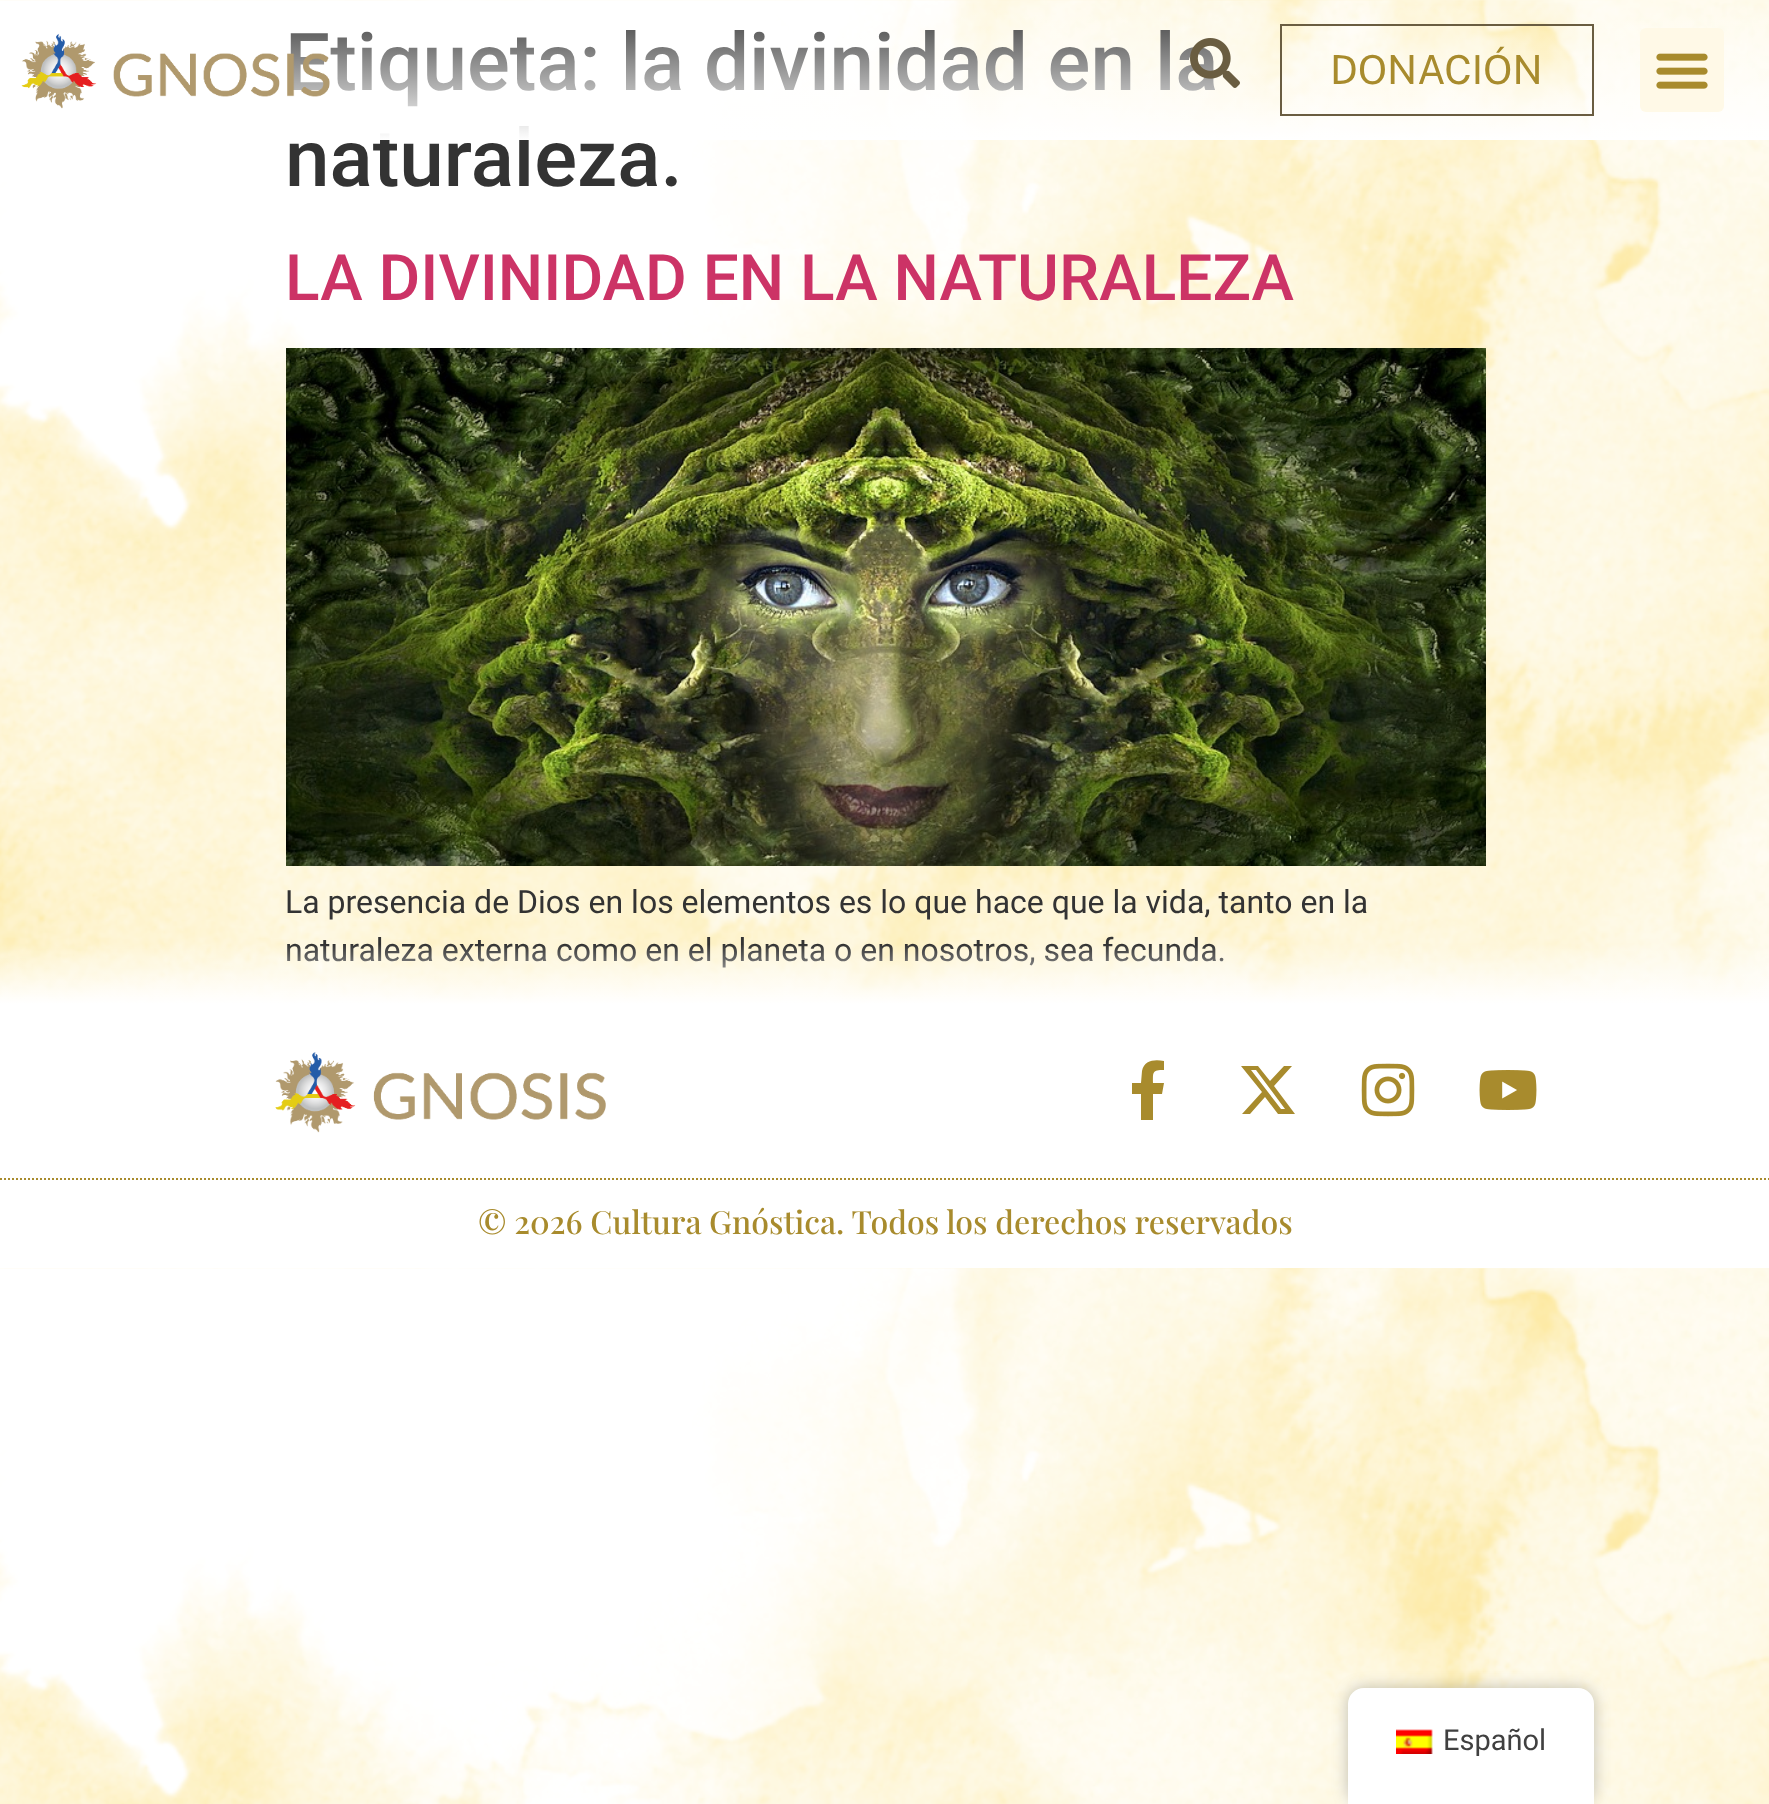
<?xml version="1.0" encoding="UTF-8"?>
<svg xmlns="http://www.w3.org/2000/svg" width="1769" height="1804">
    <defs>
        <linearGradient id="g1" gradientUnits="userSpaceOnUse" x1="885" y1="0" x2="885" y2="140"><stop offset="0" stop-color="#FFFFFF" stop-opacity="0"/><stop offset="1" stop-color="#FFFFFF"/></linearGradient>
        <linearGradient id="g2" gradientUnits="userSpaceOnUse" x1="885" y1="944" x2="885" y2="1004"><stop offset="0" stop-color="#FFFFFF" stop-opacity="0"/><stop offset="1" stop-color="#FFFFFF"/></linearGradient>
        <filter id="blur1" x="-50%" y="-200%" width="200%" height="500%"><feGaussianBlur stdDeviation="8"/></filter>
    </defs>
    <rect width="100%" height="100%" fill="#FFFFFF"/>
    <image x="0" y="0" width="1769" height="1804" href="img_01.png"/>
    <text font-family="Roboto" font-size="80" font-weight="500" fill="#333333">
        <tspan x="285" y="90">Etiqueta: la divinidad en la</tspan>
        <tspan x="285" y="186">naturaleza.</tspan>
    </text>
    <text x="285" y="300" font-family="Roboto" font-size="64" font-weight="500" fill="#CC3366">LA DIVINIDAD EN LA NATURALEZA</text>
    <image x="286" y="348" width="1200" height="518" href="img_02.png"/>
    <text font-family="Roboto" font-size="32" fill="#333333">
        <tspan x="285" y="913">La presencia de Dios en los elementos es lo que hace que la vida, tanto en la</tspan>
        <tspan x="285" y="961">naturaleza externa como en el planeta o en nosotros, sea fecunda.</tspan>
    </text>
    <rect x="290" y="6" width="1479" height="134" fill="url(#g1)"/>
    <image x="21" y="33" width="309" height="76" href="img_03.png"/>
    <image x="1190" y="38" width="50" height="50" href="img_04.png"/>
    <rect x="1281" y="25" width="312" height="90" fill="none" stroke="#6A5D41" stroke-width="2"/>
    <text x="1330" y="84" font-family="Public Sans" font-size="40" fill="#A88B2D">DONACIÓN</text>
    <rect x="1640" y="28" width="84" height="84" rx="6" fill="#FFF9E7"/>
    <image x="1656" y="53" width="52" height="36" href="img_05.png"/>
    <rect x="0" y="945" width="1769" height="59" fill="url(#g2)"/>
    <rect x="0" y="1004" width="1769" height="264" fill="#FFFFFF"/>
    <image x="275" y="1052" width="331" height="81" href="img_06.png"/>
    <path d="M 1162 1094 L 1164 1083 H 1153 C 1153 1072 1152 1070 1164 1070 V 1061 C 1155 1059 1144 1060 1142 1071 L 1141 1083 H 1132 V 1094 H 1141 V 1120 H 1153 V 1094 Z" fill="#A88B2D"/>
    <path d="M 1284 1066 H 1292 L 1274 1086 L 1295 1114 H 1278 L 1265 1097 L 1250 1114 H 1242 L 1262 1092 L 1241 1066 H 1258 L 1270 1081 Z M 1281 1109 H 1285 L 1256 1070 H 1251 Z" fill="#A88B2D"/>
    <image x="1361" y="1063" width="54" height="54" href="img_07.png"/>
    <image x="1479" y="1070" width="58" height="40" href="img_08.png"/>
    <path d="M 0 1179 H 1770" fill="none" stroke="#A88B2D" stroke-width="2" stroke-dasharray="2 2"/>
    <text x="478" y="1234" font-family="Playfair Display" font-size="32" font-weight="500" fill="#A88B2D">© 2026 Cultura Gnóstica. Todos los derechos reservados</text>
    <rect x="1348" y="1688" width="246" height="116" rx="16" fill="#000000" fill-opacity="0.25" filter="url(#blur1)"/>
    <path d="M 1364 1688 H 1578 C 1587 1688 1594 1695 1594 1704 V 1804 H 1348 V 1704 C 1348 1695 1355 1688 1364 1688 Z" fill="#FFFFFF"/>
    <image x="1396" y="1729" width="37" height="25" href="img_09.png"/>
    <text x="1443" y="1750" font-family="Roboto" font-size="29" fill="#404040">Español</text>
</svg>
